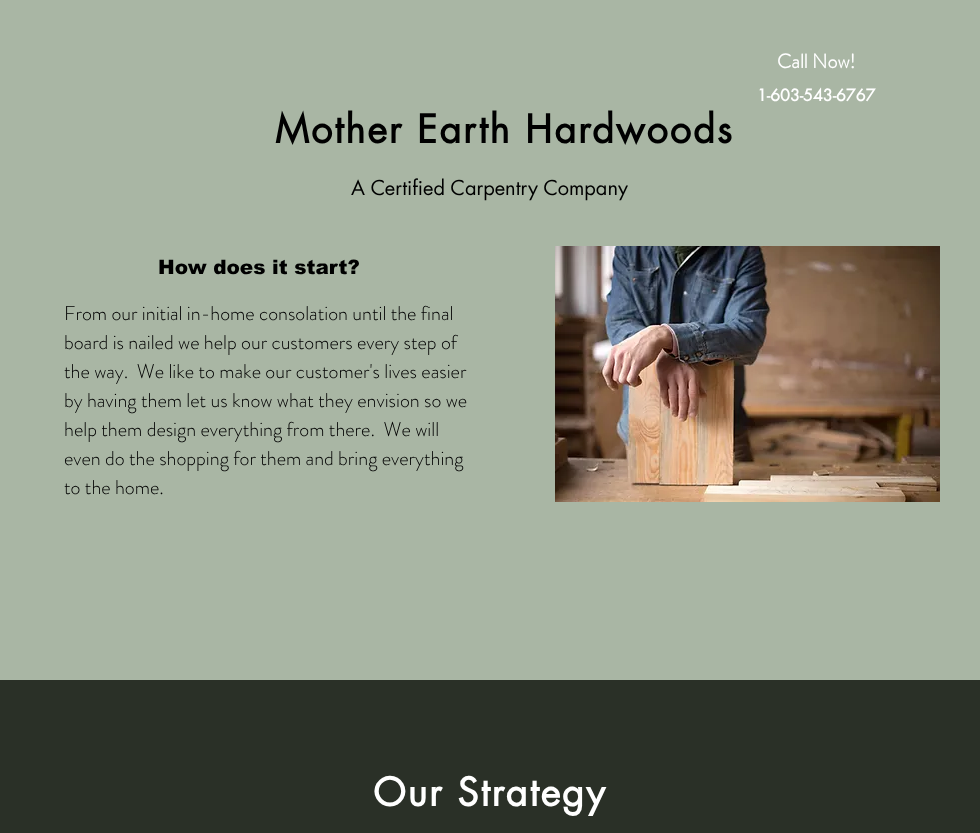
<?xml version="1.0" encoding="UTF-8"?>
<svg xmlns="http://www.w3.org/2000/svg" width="980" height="833">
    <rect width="100%" height="100%" fill="#A9B6A4"/>
    <text x="777" y="68" font-family="'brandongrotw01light'" font-size="20" font-weight="700" fill="#FFFFFF">Call Now!</text>
    <text x="757" y="101" font-family="futura" font-size="16" font-weight="700" fill="#FFFFFF">1-603-543-6767</text>
    <text x="275" y="143" font-family="futura" font-size="38" font-weight="700" letter-spacing="1.9" fill="#000000">Mother Earth Hardwoods</text>
    <text x="351" y="195" font-family="futura" font-size="20" fill="#000000">A Certified Carpentry Company</text>
    <text x="158" y="274" font-family="arial" font-size="20" font-weight="900" fill="#000000">How does it start?</text>
    <image x="555" y="246" width="385" height="256" href="img_01.png"/>
    <text font-family="'brandongrotw01light'" font-size="20" font-weight="300" fill="#000000" xml:space="preserve"><tspan x="64" y="320">From our initial in-home consolation until the final</tspan><tspan x="64" y="349">board is nailed we help our customers every step of</tspan><tspan x="64" y="378">the way.  We like to make our customer's lives easier</tspan><tspan x="64" y="407">by having them let us know what they envision so we</tspan><tspan x="64" y="436">help them design everything from there.  We will</tspan><tspan x="64" y="465">even do the shopping for them and bring everything</tspan><tspan x="64" y="494">to the home.</tspan></text>
    <rect x="0" y="680" width="980" height="153" fill="#2A3027"/>
    <text x="373" y="806" font-family="futura" font-size="38" font-weight="700" letter-spacing="1.9" fill="#FFFFFF">Our Strategy</text>
</svg>
